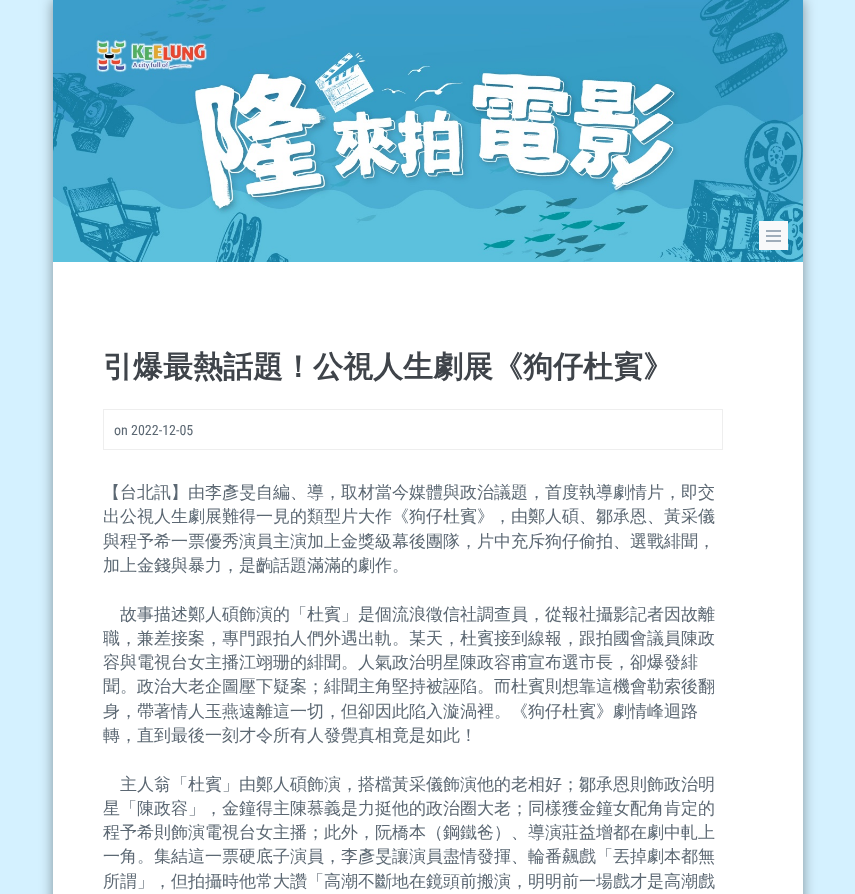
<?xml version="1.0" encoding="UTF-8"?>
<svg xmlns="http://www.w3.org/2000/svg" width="855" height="894">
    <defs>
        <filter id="blur1" x="-50%" y="-200%" width="200%" height="500%"><feGaussianBlur stdDeviation="6.5"/></filter>
    </defs>
    <rect width="100%" height="100%" fill="#D4F1FF"/>
    <rect x="53" y="0" width="750" height="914" fill="#000000" fill-opacity="0.4" filter="url(#blur1)"/>
    <image x="53" y="0" width="750" height="262" href="img_01.png"/>
    <rect x="759" y="221" width="29" height="29" fill="#F8F9FA"/>
    <rect x="766" y="230" width="15" height="2" fill="#9FADBA"/>
    <rect x="766" y="235" width="15" height="2" fill="#9FADBA"/>
    <rect x="766" y="240" width="15" height="2" fill="#9FADBA"/>
    <rect x="53" y="262" width="750" height="632" fill="#FFFFFF"/>
    <text x="103" y="377" font-family="WenQuanYi Zen Hei" font-size="30" font-weight="700" fill="#3F444A">引爆最熱話題！公視人生劇展《狗仔杜賓》</text>
    <rect x="103.5" y="409.5" width="619" height="40" fill="none" stroke="#EEEEEE"/>
    <text x="114" y="435" font-family="Roboto Condensed" font-size="14" fill="#5C6873">on 2022-12-05</text>
    <text font-family="WenQuanYi Zen Hei" font-size="17" font-weight="500" fill="#5C6873">
        <tspan x="103" y="498">【台北訊】由李彥旻自編、導，取材當今媒體與政治議題，首度執導劇情片，即交</tspan>
        <tspan x="103" y="522">出公視人生劇展難得一見的類型片大作《狗仔杜賓》，由鄭人碩、鄒承恩、黃采儀</tspan>
        <tspan x="103" y="547">與程予希一票優秀演員主演加上金獎級幕後團隊，片中充斥狗仔偷拍、選戰緋聞，</tspan>
        <tspan x="103" y="571">加上金錢與暴力，是齣話題滿滿的劇作。</tspan>
    </text>
    <text x="120" y="620" font-family="WenQuanYi Zen Hei" font-size="17" font-weight="500" fill="#5C6873">故事描述鄭人碩飾演的「杜賓」是個流浪徵信社調查員，從報社攝影記者因故離</text>
    <text font-family="WenQuanYi Zen Hei" font-size="17" font-weight="500" fill="#5C6873">
        <tspan x="103" y="644">職，兼差接案，專門跟拍人們外遇出軌。某天，杜賓接到線報，跟拍國會議員陳政</tspan>
        <tspan x="103" y="668">容與電視台女主播江翊珊的緋聞。人氣政治明星陳政容甫宣布選市長，卻爆發緋</tspan>
        <tspan x="103" y="692">聞。政治大老企圖壓下疑案；緋聞主角堅持被誣陷。而杜賓則想靠這機會勒索後翻</tspan>
        <tspan x="103" y="717">身，帶著情人玉燕遠離這一切，但卻因此陷入漩渦裡。《狗仔杜賓》劇情峰迴路</tspan>
        <tspan x="103" y="741">轉，直到最後一刻才令所有人發覺真相竟是如此！</tspan>
    </text>
    <text x="120" y="790" font-family="WenQuanYi Zen Hei" font-size="17" font-weight="500" fill="#5C6873">主人翁「杜賓」由鄭人碩飾演，搭檔黃采儀飾演他的老相好；鄒承恩則飾政治明</text>
    <text font-family="WenQuanYi Zen Hei" font-size="17" font-weight="500" fill="#5C6873">
        <tspan x="103" y="814">星「陳政容」，金鐘得主陳慕義是力挺他的政治圈大老；同樣獲金鐘女配角肯定的</tspan>
        <tspan x="103" y="838">程予希則飾演電視台女主播；此外，阮橋本（鋼鐵爸）、導演莊益增都在劇中軋上</tspan>
        <tspan x="103" y="862">一角。集結這一票硬底子演員，李彥旻讓演員盡情發揮、輪番飆戲「丟掉劇本都無</tspan>
        <tspan x="103" y="887">所謂」，但拍攝時他常大讚「高潮不斷地在鏡頭前搬演，明明前一場戲才是高潮戲</tspan>
    </text>
</svg>
